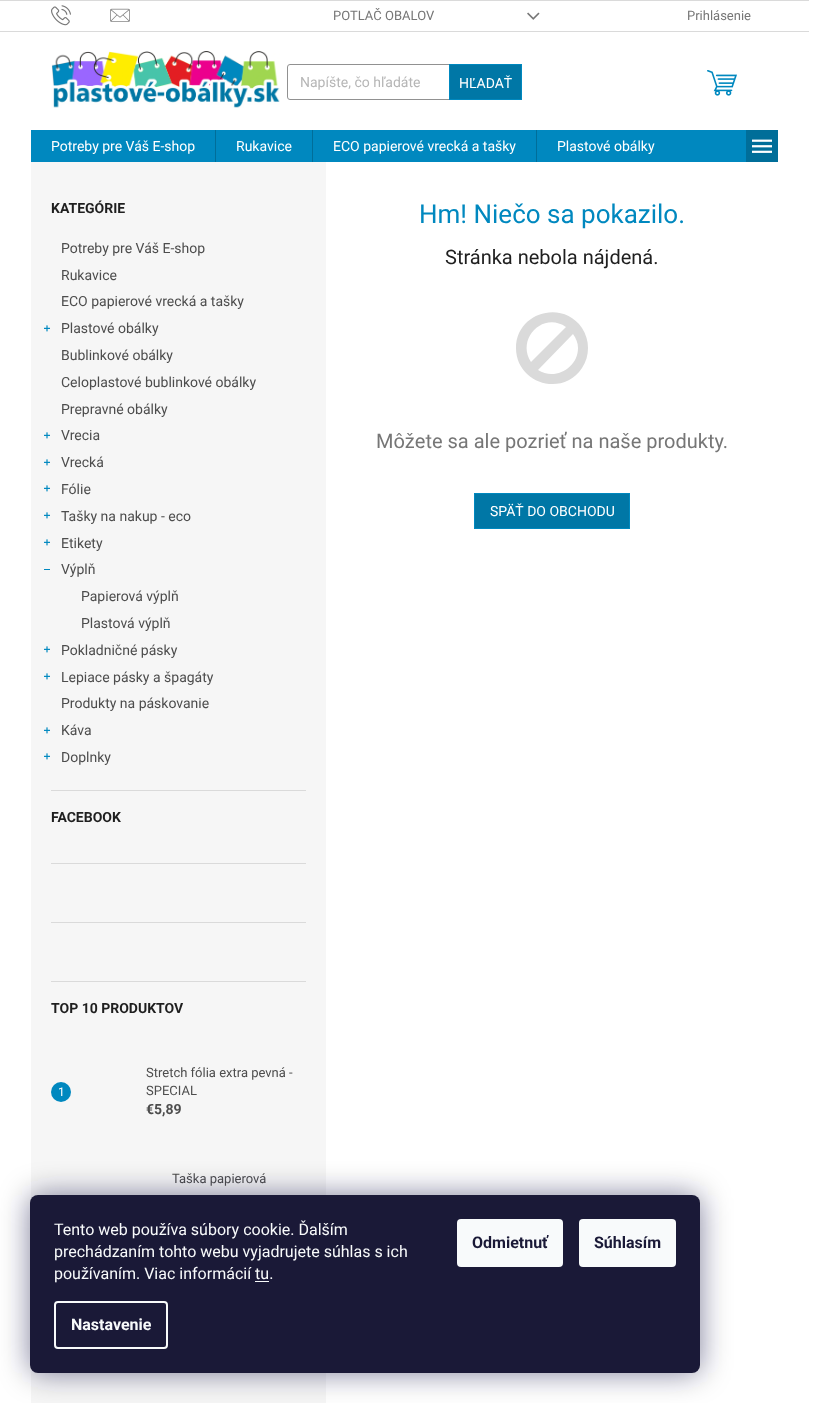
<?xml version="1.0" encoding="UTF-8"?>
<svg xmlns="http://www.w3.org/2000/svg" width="824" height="1403">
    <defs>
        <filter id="blur1" x="-50%" y="-200%" width="200%" height="500%"><feGaussianBlur stdDeviation="15"/></filter>
    </defs>
    <rect width="100%" height="100%" fill="#FFFFFF"/>
    <rect x="0" y="0" width="809" height="1" fill="#DADADA"/>
    <rect x="0" y="31" width="809" height="1" fill="#DADADA"/>
    <image x="51" y="5" width="20" height="21" href="img_01.png"/>
    <image x="110" y="8" width="20" height="14" href="img_02.png"/>
    <text x="333" y="20" font-family="Roboto" font-size="13" fill="#767676">POTLAČ OBALOV</text>
    <image x="527" y="12" width="13" height="8" href="img_03.png"/>
    <text x="687" y="20" font-family="Roboto" font-size="13" fill="#767676">Prihlásenie</text>
    <image x="51" y="51" width="229" height="57" href="img_04.png"/>
    <rect x="287.5" y="64.5" width="234" height="35" rx="2.5" fill="none" stroke="#919191"/>
    <text x="300" y="87" font-family="Roboto" font-size="14" fill="#B6B6B6">Napíšte, čo hľadáte</text>
    <rect x="449.5" y="64.5" width="72" height="35" fill="#0077A6" stroke="#0088BF"/>
    <text x="459" y="88" font-family="Roboto" font-size="14" fill="#FFFFFF">HĽADAŤ</text>
    <image x="707" y="70" width="30" height="26" href="img_05.png"/>
    <rect x="31" y="130" width="715" height="32" fill="#0088BF"/>
    <text x="51" y="151" font-family="Roboto" font-size="14" fill="#FFFFFF">Potreby pre Váš E-shop</text>
    <rect x="215" y="130" width="1" height="32" fill="#006E99"/>
    <text x="236" y="151" font-family="Roboto" font-size="14" fill="#FFFFFF">Rukavice</text>
    <rect x="312" y="130" width="1" height="32" fill="#006E99"/>
    <text x="333" y="151" font-family="Roboto" font-size="14" fill="#FFFFFF">ECO papierové vrecká a tašky</text>
    <rect x="536" y="130" width="1" height="32" fill="#006E99"/>
    <text x="557" y="151" font-family="Roboto" font-size="14" fill="#FFFFFF">Plastové obálky</text>
    <rect x="746" y="130" width="32" height="32" fill="#006E99"/>
    <image x="752" y="139" width="20" height="14" href="img_06.png"/>
    <rect x="31" y="162" width="295" height="1241" fill="#F6F6F6"/>
    <rect x="51" y="790" width="255" height="1" fill="#DADADA"/>
    <text x="51" y="213" font-family="Roboto" font-size="14" font-weight="700" fill="#1F1F1F">KATEGÓRIE</text>
    <text font-family="Roboto" font-size="14" fill="#4D4D4D">
        <tspan x="61" y="253">Potreby pre Váš E-shop</tspan>
        <tspan x="61" y="280">Rukavice</tspan>
        <tspan x="61" y="306">ECO papierové vrecká a tašky</tspan>
    </text>
    <image x="44" y="325" width="6" height="7" href="img_07.png"/>
    <text font-family="Roboto" font-size="14" fill="#4D4D4D">
        <tspan x="61" y="333">Plastové obálky</tspan>
        <tspan x="61" y="360">Bublinkové obálky</tspan>
        <tspan x="61" y="387">Celoplastové bublinkové obálky</tspan>
        <tspan x="61" y="414">Prepravné obálky</tspan>
    </text>
    <image x="44" y="432" width="6" height="7" href="img_07.png"/>
    <text x="61" y="440" font-family="Roboto" font-size="14" fill="#4D4D4D">Vrecia</text>
    <image x="44" y="459" width="6" height="7" href="img_07.png"/>
    <text x="61" y="467" font-family="Roboto" font-size="14" fill="#4D4D4D">Vrecká</text>
    <image x="44" y="485" width="6" height="7" href="img_07.png"/>
    <text x="61" y="494" font-family="Roboto" font-size="14" fill="#4D4D4D">Fólie</text>
    <image x="44" y="512" width="6" height="7" href="img_07.png"/>
    <text x="61" y="521" font-family="Roboto" font-size="14" fill="#4D4D4D">Tašky na nakup - eco</text>
    <image x="44" y="539" width="6" height="7" href="img_07.png"/>
    <text x="61" y="548" font-family="Roboto" font-size="14" fill="#4D4D4D">Etikety</text>
    <rect x="44" y="569" width="6" height="1" fill="#0088BF"/>
    <text x="61" y="574" font-family="Roboto" font-size="14" fill="#4D4D4D">Výplň</text>
    <text font-family="Roboto" font-size="14" fill="#4D4D4D">
        <tspan x="81" y="601">Papierová výplň</tspan>
        <tspan x="81" y="628">Plastová výplň</tspan>
    </text>
    <image x="44" y="646" width="6" height="7" href="img_07.png"/>
    <text x="61" y="655" font-family="Roboto" font-size="14" fill="#4D4D4D">Pokladničné pásky</text>
    <image x="44" y="673" width="6" height="7" href="img_07.png"/>
    <text font-family="Roboto" font-size="14" fill="#4D4D4D">
        <tspan x="61" y="682">Lepiace pásky a špagáty</tspan>
        <tspan x="61" y="708">Produkty na páskovanie</tspan>
    </text>
    <image x="44" y="727" width="6" height="7" href="img_07.png"/>
    <text x="61" y="735" font-family="Roboto" font-size="14" fill="#4D4D4D">Káva</text>
    <image x="44" y="753" width="6" height="7" href="img_07.png"/>
    <text x="61" y="762" font-family="Roboto" font-size="14" fill="#4D4D4D">Doplnky</text>
    <rect x="51" y="863" width="255" height="1" fill="#DADADA"/>
    <text x="51" y="822" font-family="Roboto" font-size="14" font-weight="700" fill="#1F1F1F">FACEBOOK</text>
    <rect x="51" y="922" width="255" height="1" fill="#DADADA"/>
    <rect x="51" y="981" width="255" height="1" fill="#DADADA"/>
    <text x="51" y="1013" font-family="Roboto" font-size="14" font-weight="700" fill="#1F1F1F">TOP 10 PRODUKTOV</text>
    <circle cx="61" cy="1092" r="10" fill="#0088BF"/>
    <text x="58" y="1096" font-family="Roboto" font-size="12" fill="#FFFFFF">1</text>
    <text font-family="Roboto" font-size="13" fill="#4D4D4D">
        <tspan x="146" y="1077">Stretch fólia extra pevná -</tspan>
        <tspan x="146" y="1095">SPECIAL</tspan>
    </text>
    <text x="146" y="1114" font-family="Roboto" font-size="14" font-weight="700" fill="#4D4D4D">€5,89</text>
    <text x="172" y="1183" font-family="Roboto" font-size="13" fill="#4D4D4D">Taška papierová</text>
    <text x="419" y="223" font-family="Roboto" font-size="26" fill="#0088BF">Hm! Niečo sa pokazilo.</text>
    <text x="445" y="264" font-family="Roboto" font-size="20" fill="#1F1F1F">Stránka nebola nájdená.</text>
    <path d="M 578 348 C 578 343 576 338 573 334 L 538 370 C 555 381 578 368 578 348 Z M 531 362 L 566 327 C 543 311 516 339 531 362 Z M 588 348 C 588 355 586 362 582 368 C 562 398 516 383 516 348 C 516 313 562 299 582 328 C 586 334 588 341 588 348 Z" fill="#DADADA"/>
    <text x="376" y="448" font-family="Roboto" font-size="20" fill="#767676">Môžete sa ale pozrieť na naše produkty.</text>
    <rect x="474.5" y="493.5" width="155" height="35" fill="#0077A6" stroke="#0088BF"/>
    <text x="490" y="516" font-family="Roboto" font-size="14" fill="#FFFFFF">SPÄŤ DO OBCHODU</text>
    <rect x="30" y="1195" width="670" height="178" rx="8" fill="#1B1939" fill-opacity="0.5" filter="url(#blur1)"/>
    <rect x="30" y="1195" width="670" height="178" rx="8" fill="#1A1937"/>
    <text font-family="Roboto" font-size="16" fill="#F8FAFB">
        <tspan x="54" y="1235">Tento web používa súbory cookie. Ďalším</tspan>
        <tspan x="54" y="1257">prechádzaním tohto webu vyjadrujete súhlas s ich</tspan>
        <tspan x="54" y="1279">používaním. Viac informácií tu.</tspan>
    </text>
    <rect x="255" y="1281" width="14" height="1" fill="#F8FAFB"/>
    <rect x="55" y="1302" width="112" height="46" rx="3" fill="none" stroke="#F8FAFB" stroke-width="2"/>
    <text x="71" y="1330" font-family="Roboto" font-size="16" font-weight="700" fill="#F8FAFB">Nastavenie</text>
    <rect x="457" y="1219" width="106" height="48" rx="4" fill="#F8FAFB"/>
    <text x="472" y="1248" font-family="Roboto" font-size="16" font-weight="700" fill="#1A1937">Odmietnuť</text>
    <rect x="579" y="1219" width="97" height="48" rx="4" fill="#F8FAFB"/>
    <text x="594" y="1248" font-family="Roboto" font-size="16" font-weight="700" fill="#1A1937">Súhlasím</text>
</svg>
